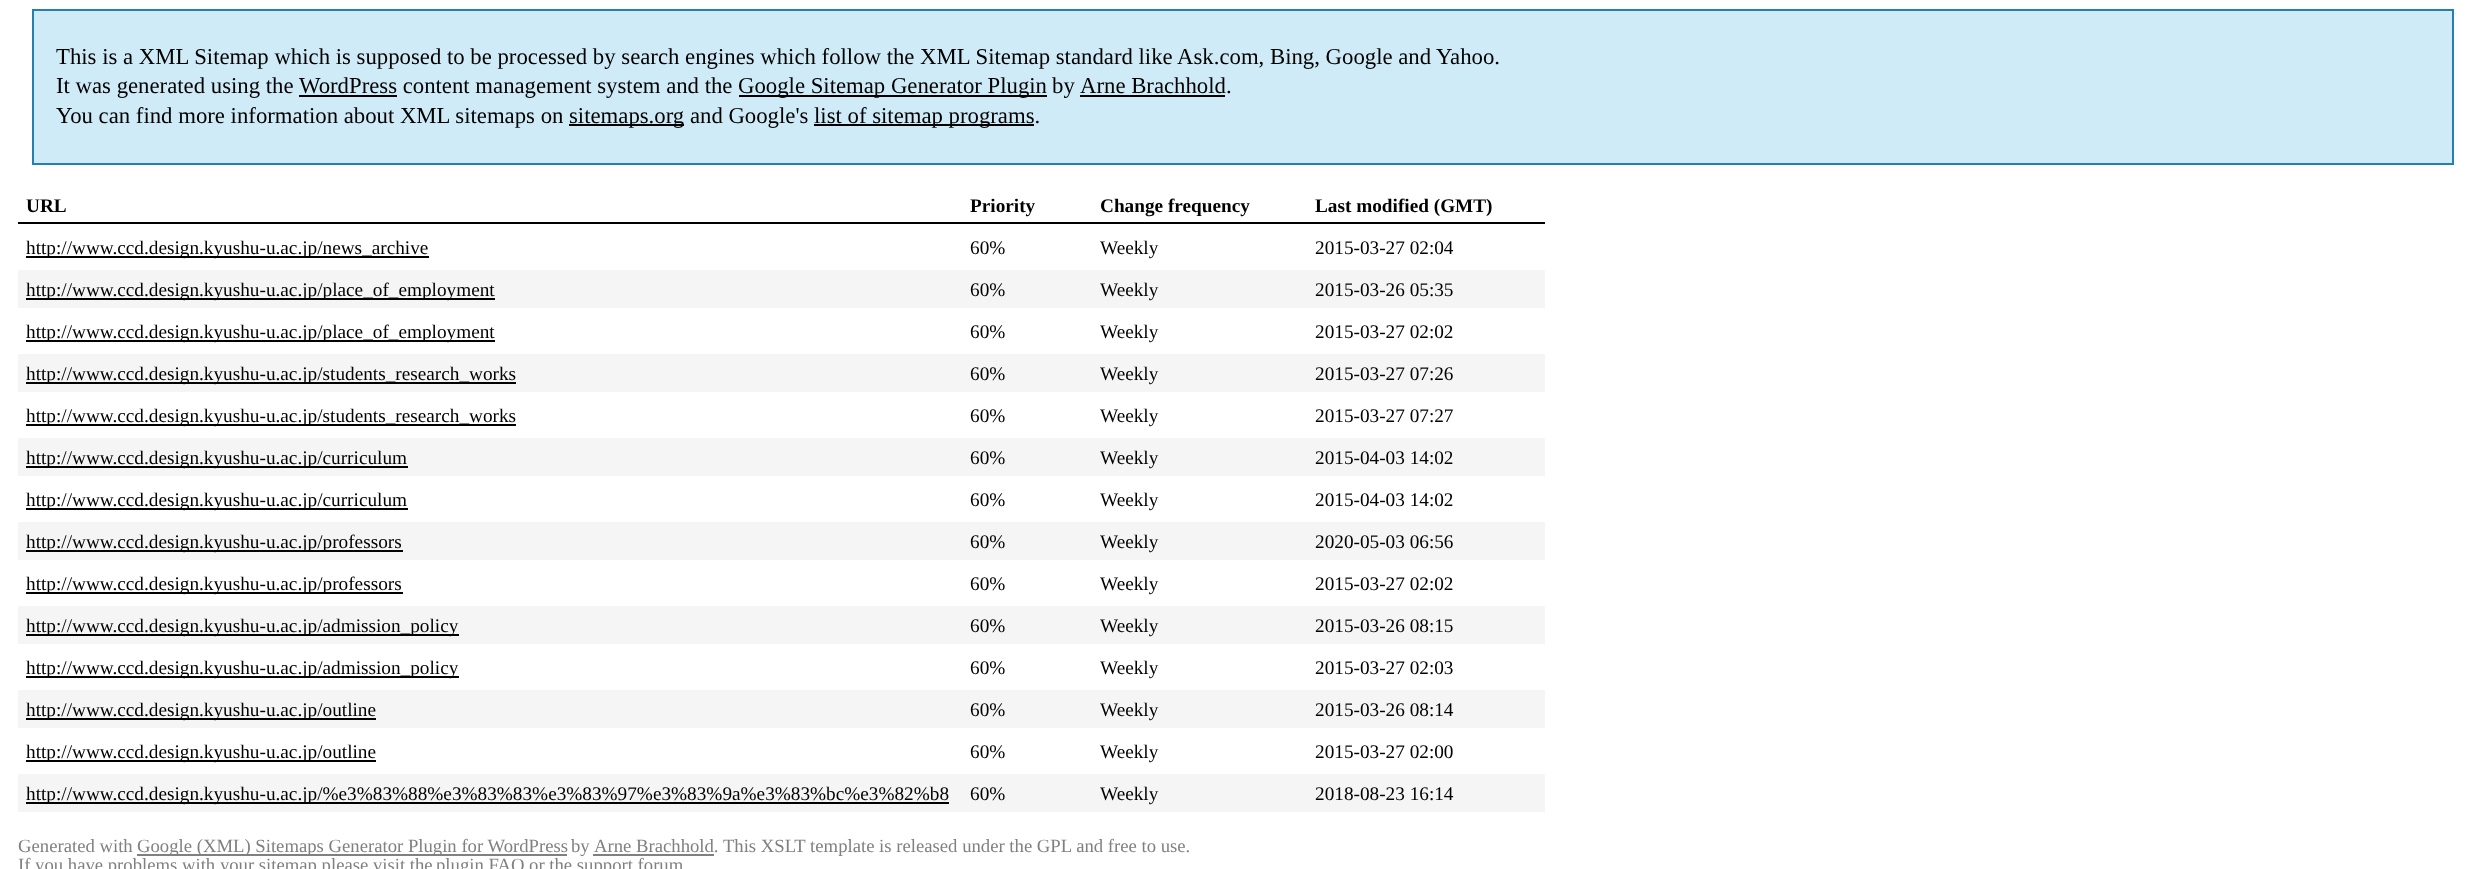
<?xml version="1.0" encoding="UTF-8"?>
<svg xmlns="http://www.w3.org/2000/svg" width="2484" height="869">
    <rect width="100%" height="100%" fill="#FFFFFF"/>
    <rect x="33" y="10" width="2420" height="154" fill="#CFEBF7" stroke="#2580B2" stroke-width="2"/>
    <text font-family="Liberation Serif" font-size="22.75" fill="#000000">
        <tspan x="56" y="64">This is a XML Sitemap which is supposed to be processed by search engines which follow the XML Sitemap standard like Ask.com, Bing, Google and Yahoo.</tspan>
        <tspan x="56" y="93">It was generated using the</tspan>
    </text>
    <rect x="299" y="95" width="98" height="2" fill="#000000"/>
    <text x="299" y="93" font-family="Liberation Serif" font-size="22.75" fill="#000000">WordPress content management system and the</text>
    <rect x="739" y="95" width="308" height="2" fill="#000000"/>
    <text x="738" y="93" font-family="Liberation Serif" font-size="22.75" fill="#000000">Google Sitemap Generator Plugin</text>
    <text x="1052" y="93" font-family="Liberation Serif" font-size="22.75" fill="#000000">by</text>
    <text x="1080" y="93" font-family="Liberation Serif" font-size="22.75" fill="#000000">Arne Brachhold.</text>
    <rect x="1080" y="95" width="145" height="2" fill="#000000"/>
    <text x="56" y="123" font-family="Liberation Serif" font-size="22.75" fill="#000000">You can find more information about XML sitemaps on</text>
    <rect x="569" y="124" width="115" height="2" fill="#000000"/>
    <text x="569" y="123" font-family="Liberation Serif" font-size="22.75" fill="#000000">sitemaps.org and Google's</text>
    <rect x="814" y="124" width="220" height="2" fill="#000000"/>
    <text x="814" y="123" font-family="Liberation Serif" font-size="22.75" fill="#000000">list of sitemap programs.</text>
    <rect x="18" y="222" width="1527" height="2" fill="#000000"/>
    <text x="26" y="212" font-family="Liberation Serif" font-size="19.25" font-weight="700" fill="#000000">URL</text>
    <text x="970" y="212" font-family="Liberation Serif" font-size="19.25" font-weight="700" fill="#000000">Priority</text>
    <text x="1100" y="212" font-family="Liberation Serif" font-size="19.25" font-weight="700" fill="#000000">Change frequency</text>
    <text x="1315" y="212" font-family="Liberation Serif" font-size="19.25" font-weight="700" fill="#000000">Last modified (GMT)</text>
    <rect x="26" y="256" width="403" height="2" fill="#000000"/>
    <text x="26" y="254" font-family="Liberation Serif" font-size="19.25" fill="#000000">http://www.ccd.design.kyushu-u.ac.jp/news_archive</text>
    <text x="970" y="254" font-family="Liberation Serif" font-size="19.25" fill="#000000">60%</text>
    <text x="1100" y="254" font-family="Liberation Serif" font-size="19.25" fill="#000000">Weekly</text>
    <text x="1315" y="254" font-family="Liberation Serif" font-size="19.25" fill="#000000">2015-03-27 02:04</text>
    <rect x="18" y="270" width="1527" height="38" fill="#F5F5F5"/>
    <rect x="26" y="298" width="469" height="2" fill="#000000"/>
    <text x="26" y="296" font-family="Liberation Serif" font-size="19.25" fill="#000000">http://www.ccd.design.kyushu-u.ac.jp/place_of_employment</text>
    <text x="970" y="296" font-family="Liberation Serif" font-size="19.25" fill="#000000">60%</text>
    <text x="1100" y="296" font-family="Liberation Serif" font-size="19.25" fill="#000000">Weekly</text>
    <text x="1315" y="296" font-family="Liberation Serif" font-size="19.25" fill="#000000">2015-03-26 05:35</text>
    <rect x="26" y="340" width="469" height="2" fill="#000000"/>
    <text x="26" y="338" font-family="Liberation Serif" font-size="19.25" fill="#000000">http://www.ccd.design.kyushu-u.ac.jp/place_of_employment</text>
    <text x="970" y="338" font-family="Liberation Serif" font-size="19.25" fill="#000000">60%</text>
    <text x="1100" y="338" font-family="Liberation Serif" font-size="19.25" fill="#000000">Weekly</text>
    <text x="1315" y="338" font-family="Liberation Serif" font-size="19.25" fill="#000000">2015-03-27 02:02</text>
    <rect x="18" y="354" width="1527" height="38" fill="#F5F5F5"/>
    <rect x="26" y="382" width="490" height="2" fill="#000000"/>
    <text x="26" y="380" font-family="Liberation Serif" font-size="19.25" fill="#000000">http://www.ccd.design.kyushu-u.ac.jp/students_research_works</text>
    <text x="970" y="380" font-family="Liberation Serif" font-size="19.25" fill="#000000">60%</text>
    <text x="1100" y="380" font-family="Liberation Serif" font-size="19.25" fill="#000000">Weekly</text>
    <text x="1315" y="380" font-family="Liberation Serif" font-size="19.25" fill="#000000">2015-03-27 07:26</text>
    <rect x="26" y="424" width="490" height="2" fill="#000000"/>
    <text x="26" y="422" font-family="Liberation Serif" font-size="19.25" fill="#000000">http://www.ccd.design.kyushu-u.ac.jp/students_research_works</text>
    <text x="970" y="422" font-family="Liberation Serif" font-size="19.25" fill="#000000">60%</text>
    <text x="1100" y="422" font-family="Liberation Serif" font-size="19.25" fill="#000000">Weekly</text>
    <text x="1315" y="422" font-family="Liberation Serif" font-size="19.25" fill="#000000">2015-03-27 07:27</text>
    <rect x="18" y="438" width="1527" height="38" fill="#F5F5F5"/>
    <rect x="26" y="466" width="382" height="2" fill="#000000"/>
    <text x="26" y="464" font-family="Liberation Serif" font-size="19.25" fill="#000000">http://www.ccd.design.kyushu-u.ac.jp/curriculum</text>
    <text x="970" y="464" font-family="Liberation Serif" font-size="19.25" fill="#000000">60%</text>
    <text x="1100" y="464" font-family="Liberation Serif" font-size="19.25" fill="#000000">Weekly</text>
    <text x="1315" y="464" font-family="Liberation Serif" font-size="19.25" fill="#000000">2015-04-03 14:02</text>
    <rect x="26" y="508" width="382" height="2" fill="#000000"/>
    <text x="26" y="506" font-family="Liberation Serif" font-size="19.25" fill="#000000">http://www.ccd.design.kyushu-u.ac.jp/curriculum</text>
    <text x="970" y="506" font-family="Liberation Serif" font-size="19.25" fill="#000000">60%</text>
    <text x="1100" y="506" font-family="Liberation Serif" font-size="19.25" fill="#000000">Weekly</text>
    <text x="1315" y="506" font-family="Liberation Serif" font-size="19.25" fill="#000000">2015-04-03 14:02</text>
    <rect x="18" y="522" width="1527" height="38" fill="#F5F5F5"/>
    <rect x="26" y="550" width="377" height="2" fill="#000000"/>
    <text x="26" y="548" font-family="Liberation Serif" font-size="19.25" fill="#000000">http://www.ccd.design.kyushu-u.ac.jp/professors</text>
    <text x="970" y="548" font-family="Liberation Serif" font-size="19.25" fill="#000000">60%</text>
    <text x="1100" y="548" font-family="Liberation Serif" font-size="19.25" fill="#000000">Weekly</text>
    <text x="1315" y="548" font-family="Liberation Serif" font-size="19.25" fill="#000000">2020-05-03 06:56</text>
    <rect x="26" y="592" width="377" height="2" fill="#000000"/>
    <text x="26" y="590" font-family="Liberation Serif" font-size="19.25" fill="#000000">http://www.ccd.design.kyushu-u.ac.jp/professors</text>
    <text x="970" y="590" font-family="Liberation Serif" font-size="19.25" fill="#000000">60%</text>
    <text x="1100" y="590" font-family="Liberation Serif" font-size="19.25" fill="#000000">Weekly</text>
    <text x="1315" y="590" font-family="Liberation Serif" font-size="19.25" fill="#000000">2015-03-27 02:02</text>
    <rect x="18" y="606" width="1527" height="38" fill="#F5F5F5"/>
    <rect x="26" y="634" width="433" height="2" fill="#000000"/>
    <text x="26" y="632" font-family="Liberation Serif" font-size="19.25" fill="#000000">http://www.ccd.design.kyushu-u.ac.jp/admission_policy</text>
    <text x="970" y="632" font-family="Liberation Serif" font-size="19.25" fill="#000000">60%</text>
    <text x="1100" y="632" font-family="Liberation Serif" font-size="19.25" fill="#000000">Weekly</text>
    <text x="1315" y="632" font-family="Liberation Serif" font-size="19.25" fill="#000000">2015-03-26 08:15</text>
    <rect x="26" y="676" width="433" height="2" fill="#000000"/>
    <text x="26" y="674" font-family="Liberation Serif" font-size="19.25" fill="#000000">http://www.ccd.design.kyushu-u.ac.jp/admission_policy</text>
    <text x="970" y="674" font-family="Liberation Serif" font-size="19.25" fill="#000000">60%</text>
    <text x="1100" y="674" font-family="Liberation Serif" font-size="19.25" fill="#000000">Weekly</text>
    <text x="1315" y="674" font-family="Liberation Serif" font-size="19.25" fill="#000000">2015-03-27 02:03</text>
    <rect x="18" y="690" width="1527" height="38" fill="#F5F5F5"/>
    <rect x="26" y="718" width="350" height="2" fill="#000000"/>
    <text x="26" y="716" font-family="Liberation Serif" font-size="19.25" fill="#000000">http://www.ccd.design.kyushu-u.ac.jp/outline</text>
    <text x="970" y="716" font-family="Liberation Serif" font-size="19.25" fill="#000000">60%</text>
    <text x="1100" y="716" font-family="Liberation Serif" font-size="19.25" fill="#000000">Weekly</text>
    <text x="1315" y="716" font-family="Liberation Serif" font-size="19.25" fill="#000000">2015-03-26 08:14</text>
    <rect x="26" y="760" width="350" height="2" fill="#000000"/>
    <text x="26" y="758" font-family="Liberation Serif" font-size="19.25" fill="#000000">http://www.ccd.design.kyushu-u.ac.jp/outline</text>
    <text x="970" y="758" font-family="Liberation Serif" font-size="19.25" fill="#000000">60%</text>
    <text x="1100" y="758" font-family="Liberation Serif" font-size="19.25" fill="#000000">Weekly</text>
    <text x="1315" y="758" font-family="Liberation Serif" font-size="19.25" fill="#000000">2015-03-27 02:00</text>
    <rect x="18" y="774" width="1527" height="38" fill="#F5F5F5"/>
    <rect x="26" y="802" width="923" height="2" fill="#000000"/>
    <text x="26" y="800" font-family="Liberation Serif" font-size="19.25" fill="#000000">http://www.ccd.design.kyushu-u.ac.jp/%e3%83%88%e3%83%83%e3%83%97%e3%83%9a%e3%83%bc%e3%82%b8</text>
    <text x="970" y="800" font-family="Liberation Serif" font-size="19.25" fill="#000000">60%</text>
    <text x="1100" y="800" font-family="Liberation Serif" font-size="19.25" fill="#000000">Weekly</text>
    <text x="1315" y="800" font-family="Liberation Serif" font-size="19.25" fill="#000000">2018-08-23 16:14</text>
    <text x="18" y="852" font-family="Liberation Serif" font-size="18.7" fill="#808080">Generated with</text>
    <rect x="137" y="854" width="430" height="2" fill="#808080"/>
    <text x="137" y="852" font-family="Liberation Serif" font-size="18.7" fill="#808080">Google (XML) Sitemaps Generator Plugin for WordPress</text>
    <text x="571" y="852" font-family="Liberation Serif" font-size="18.7" fill="#808080">by</text>
    <rect x="593" y="854" width="121" height="2" fill="#808080"/>
    <text x="594" y="852" font-family="Liberation Serif" font-size="18.7" fill="#808080">Arne Brachhold. This XSLT template is released under the GPL and free to use.</text>
    <text x="18" y="871" font-family="Liberation Serif" font-size="18.7" fill="#808080">If you have problems with your sitemap please visit the</text>
    <text x="436" y="871" font-family="Liberation Serif" font-size="18.7" fill="#808080">plugin FAQ or the support forum</text>
</svg>
